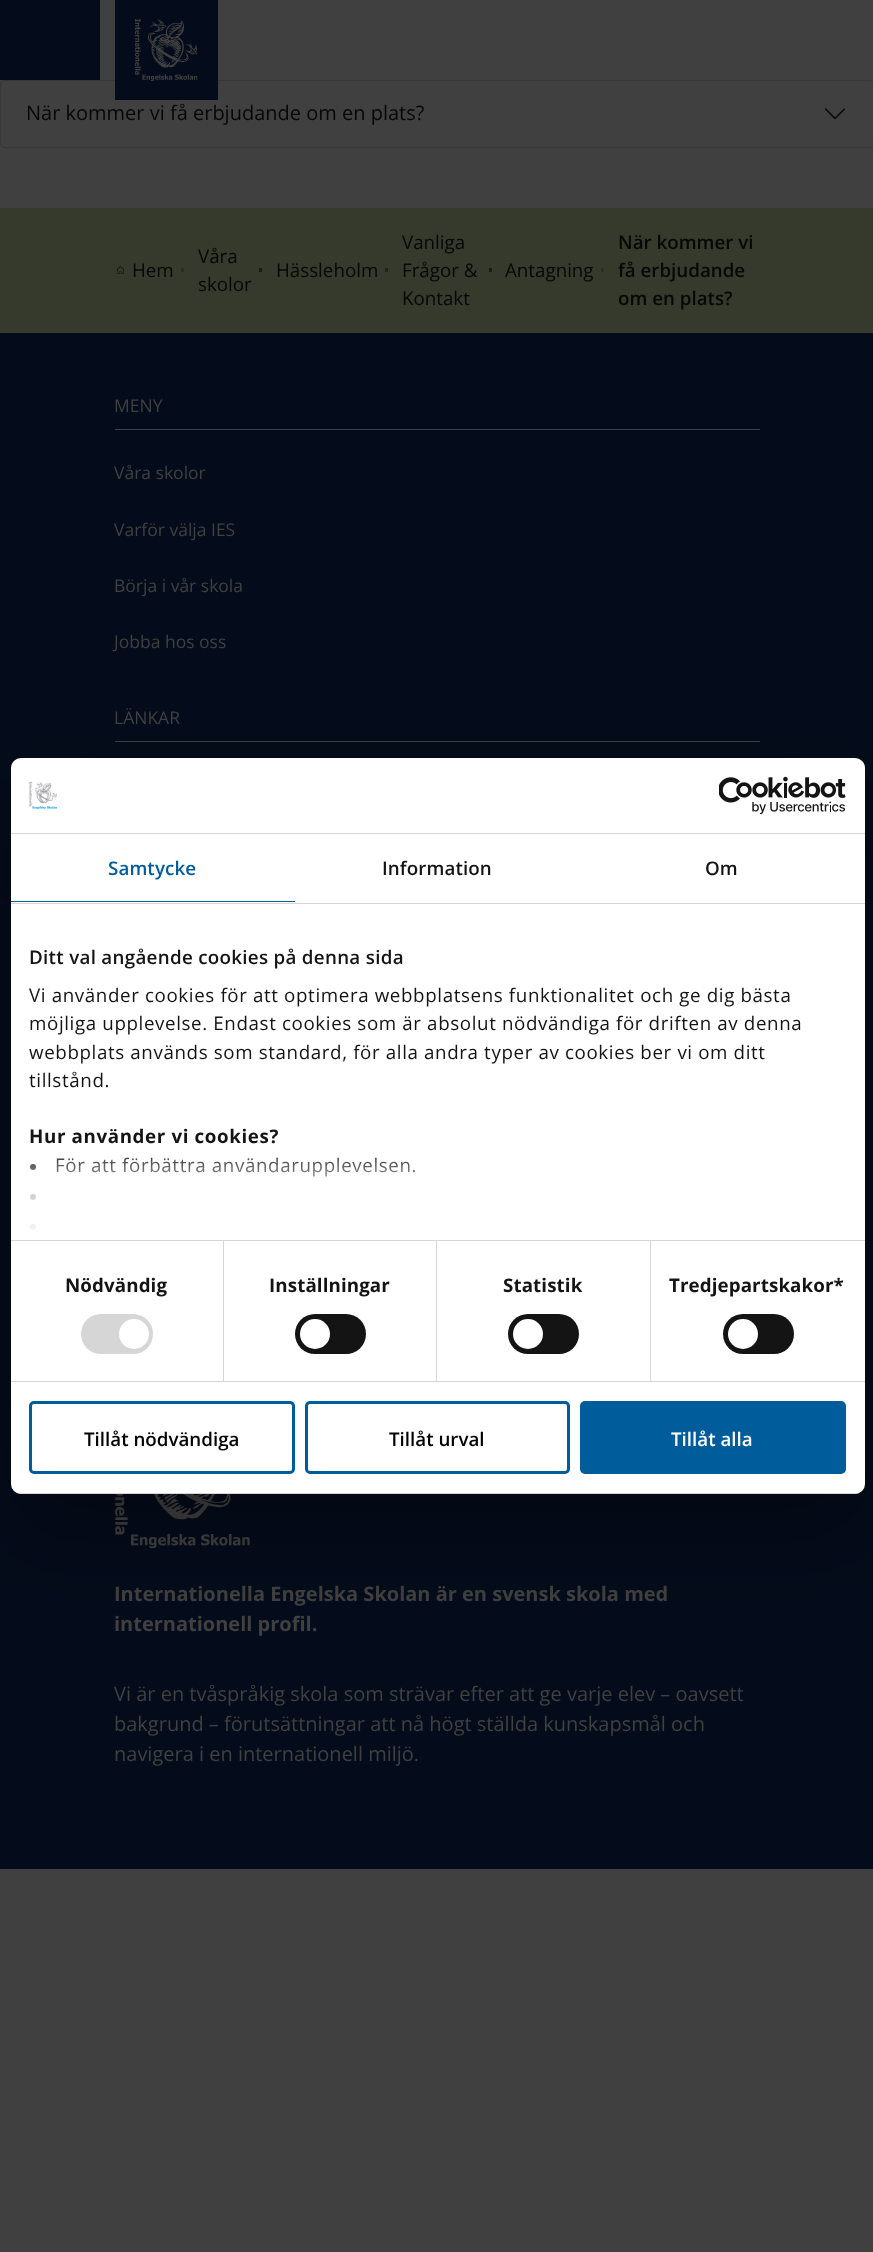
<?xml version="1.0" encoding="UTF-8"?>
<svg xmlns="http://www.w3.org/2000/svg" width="873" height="2252">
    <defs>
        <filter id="blur1" x="-50%" y="-200%" width="200%" height="500%"><feGaussianBlur stdDeviation="42.5"/></filter>
        <linearGradient id="g1" gradientUnits="userSpaceOnUse" x1="429" y1="1240" x2="429" y2="1147"><stop offset="0" stop-color="#FFFFFF"/><stop offset="0.5" stop-color="#FFFFFF" stop-opacity="0.8"/><stop offset="1" stop-color="#FFFFFF" stop-opacity="0"/></linearGradient>
        <clipPath id="clip1"><rect x="11" y="758" width="854" height="736" rx="10"/></clipPath>
    </defs>
    <rect width="100%" height="100%" fill="#404040"/>
    <rect x="0" y="0" width="100" height="80" fill="#040B1A"/>
    <rect x="0.5" y="80.5" width="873" height="67" rx="4.5" fill="none" stroke="#383838"/>
    <rect x="115" y="0" width="103" height="100" fill="#040B1A"/>
    <image x="135" y="19" width="63" height="62" href="img_01.png"/>
    <text x="26" y="120" font-family="Open Sans" font-size="20" fill="#070707">När kommer vi få erbjudande om en plats?</text>
    <image x="824" y="108" width="22" height="12" href="img_02.png"/>
    <rect x="0" y="208" width="873" height="125" fill="#363A2C"/>
    <image x="116" y="266" width="9" height="8" href="img_03.png"/>
    <text x="132" y="277" font-family="Open Sans" font-size="18.75" fill="#070707">Hem</text>
    <rect x="181" y="268" width="3" height="4" fill="#2B2D23"/>
    <text font-family="Open Sans" font-size="18.75" fill="#070707">
        <tspan x="198" y="263">Våra</tspan>
        <tspan x="198" y="291">skolor</tspan>
    </text>
    <rect x="259" y="268" width="3" height="4" fill="#1A1B16"/>
    <text x="276" y="277" font-family="Open Sans" font-size="18.75" fill="#070707">Hässleholm</text>
    <rect x="385" y="268" width="3" height="4" fill="#21231C"/>
    <text font-family="Open Sans" font-size="18.75" fill="#070707">
        <tspan x="402" y="249">Vanliga</tspan>
        <tspan x="402" y="277">Frågor &amp;</tspan>
        <tspan x="402" y="305">Kontakt</tspan>
    </text>
    <rect x="489" y="268" width="3" height="4" fill="#1A1B16"/>
    <text x="505" y="277" font-family="Open Sans" font-size="18.75" fill="#070707">Antagning</text>
    <rect x="601" y="268" width="3" height="4" fill="#2B2D23"/>
    <text font-family="Open Sans" font-size="18.75" font-weight="600" fill="#070707">
        <tspan x="618" y="249">När kommer vi</tspan>
        <tspan x="618" y="277">få erbjudande</tspan>
        <tspan x="618" y="305">om en plats?</tspan>
    </text>
    <rect x="0" y="333" width="873" height="1536" fill="#040B1A"/>
    <text x="114" y="412" font-family="Open Sans" font-size="17.5" fill="#404040">MENY</text>
    <rect x="115" y="429" width="645" height="1" fill="#404040"/>
    <text x="114" y="479" font-family="Open Sans" font-size="17.5" fill="#404040">Våra skolor</text>
    <text x="114" y="536" font-family="Open Sans" font-size="17.5" fill="#404040">Varför välja IES</text>
    <text x="114" y="592" font-family="Open Sans" font-size="17.5" fill="#404040">Börja i vår skola</text>
    <text x="114" y="648" font-family="Open Sans" font-size="17.5" fill="#404040">Jobba hos oss</text>
    <text x="114" y="724" font-family="Open Sans" font-size="17.5" fill="#404040">LÄNKAR</text>
    <rect x="115" y="741" width="645" height="1" fill="#404040"/>
    <image x="115" y="1494" width="135" height="55" href="img_04.png"/>
    <text font-family="Open Sans" font-size="20" font-weight="700" fill="#404040">
        <tspan x="114" y="1601">Internationella Engelska Skolan är en svensk skola med</tspan>
        <tspan x="114" y="1631">internationell profil.</tspan>
    </text>
    <text font-family="Open Sans" font-size="20" fill="#404040">
        <tspan x="114" y="1701">Vi är en tvåspråkig skola som strävar efter att ge varje elev – oavsett</tspan>
        <tspan x="114" y="1731">bakgrund – förutsättningar att nå högt ställda kunskapsmål och</tspan>
        <tspan x="114" y="1761">navigera i en internationell miljö.</tspan>
    </text>
    <rect x="11" y="798" width="854" height="736" rx="10" fill="#000000" fill-opacity="0.3" filter="url(#blur1)"/>
    <rect x="11" y="758" width="854" height="736" rx="10" fill="#FFFFFF"/>
    <rect x="11" y="833" width="854" height="1" fill="#D6D6D6"/>
    <image x="29" y="781" width="28" height="29" href="img_05.png"/>
    <image x="719" y="776" width="127" height="38" href="img_06.png"/>
    <rect x="11" y="903" width="854" height="1" fill="#D6D6D6"/>
    <rect x="11" y="901" width="284" height="1" fill="#005C9A"/>
    <text x="108" y="875" font-family="Open Sans" font-size="18.75" font-weight="600" letter-spacing="0.1" fill="#005C9A">Samtycke</text>
    <text x="382" y="875" font-family="Open Sans" font-size="18.75" font-weight="600" letter-spacing="0.1" fill="#141414">Information</text>
    <text x="705" y="875" font-family="Open Sans" font-size="18.75" font-weight="600" letter-spacing="0.1" fill="#141414">Om</text>
    <rect x="11" y="1240" width="854" height="1" fill="#D6D6D6"/>
    <text x="29" y="964" font-family="Open Sans" font-size="18.75" font-weight="600" letter-spacing="0.3" fill="#141414">Ditt val angående cookies på denna sida</text>
    <text font-family="Open Sans" font-size="18.75" letter-spacing="0.62" fill="#141414">
        <tspan x="29" y="1002">Vi använder cookies för att optimera webbplatsens funktionalitet och ge dig bästa</tspan>
        <tspan x="29" y="1030">möjliga upplevelse. Endast cookies som är absolut nödvändiga för driften av denna</tspan>
        <tspan x="29" y="1059">webbplats används som standard, för alla andra typer av cookies ber vi om ditt</tspan>
        <tspan x="29" y="1087">tillstånd.</tspan>
    </text>
    <text x="29" y="1143" font-family="Open Sans" font-size="18.75" font-weight="700" letter-spacing="0.62" fill="#141414">Hur använder vi cookies?</text>
    <circle cx="33" cy="1167" r="3" fill="#141414"/>
    <text x="55" y="1172" font-family="Open Sans" font-size="18.75" letter-spacing="0.62" fill="#141414">För att förbättra användarupplevelsen.</text>
    <circle cx="33" cy="1197" r="3" fill="#141414"/>
    <circle cx="33" cy="1227" r="3" fill="#141414"/>
    <rect x="30" y="1157" width="386" height="73" fill="url(#g1)"/>
    <rect x="11" y="1381" width="854" height="1" fill="#D6D6D6"/>
    <rect x="223" y="1241" width="1" height="140" fill="#D6D6D6"/>
    <text x="65" y="1292" font-family="Open Sans" font-size="18.75" font-weight="700" letter-spacing="0.1" fill="#141414">Nödvändig</text>
    <rect x="81" y="1314" width="72" height="40" rx="20" fill="#D6D6D6"/>
    <circle cx="134" cy="1334" r="15" fill="#FFFFFF"/>
    <rect x="436" y="1241" width="1" height="140" fill="#D6D6D6"/>
    <text x="269" y="1292" font-family="Open Sans" font-size="18.75" font-weight="700" letter-spacing="0.1" fill="#141414">Inställningar</text>
    <rect x="295" y="1314" width="71" height="40" rx="20" fill="#141414"/>
    <circle cx="315" cy="1334" r="15" fill="#FFFFFF"/>
    <rect x="650" y="1241" width="1" height="140" fill="#D6D6D6"/>
    <text x="503" y="1292" font-family="Open Sans" font-size="18.75" font-weight="700" letter-spacing="0.1" fill="#141414">Statistik</text>
    <rect x="508" y="1314" width="71" height="40" rx="20" fill="#141414"/>
    <circle cx="528" cy="1334" r="15" fill="#FFFFFF"/>
    <text x="669" y="1292" font-family="Open Sans" font-size="18.75" font-weight="700" letter-spacing="0.1" fill="#141414">Tredjepartskakor*</text>
    <rect x="723" y="1314" width="71" height="40" rx="20" fill="#141414"/>
    <circle cx="743" cy="1334" r="15" fill="#FFFFFF"/>
    <g clip-path="url(#clip1)">
        <rect x="11" y="1493" width="854" height="1" fill="#D6D6D6"/>
    </g>
    <rect x="30.5" y="1402.5" width="263" height="70" rx="3.5" fill="none" stroke="#005C9A" stroke-width="3"/>
    <text x="84" y="1446" font-family="Open Sans" font-size="18.75" font-weight="600" fill="#000000">Tillåt nödvändiga</text>
    <rect x="306.5" y="1402.5" width="262" height="70" rx="3.5" fill="none" stroke="#005C9A" stroke-width="3"/>
    <text x="389" y="1446" font-family="Open Sans" font-size="18.75" font-weight="600" fill="#000000">Tillåt urval</text>
    <rect x="581.5" y="1402.5" width="263" height="70" rx="3.5" fill="#005C9A" stroke="#005C9A" stroke-width="3"/>
    <text x="671" y="1446" font-family="Open Sans" font-size="18.75" font-weight="600" fill="#FFFFFF">Tillåt alla</text>
</svg>
